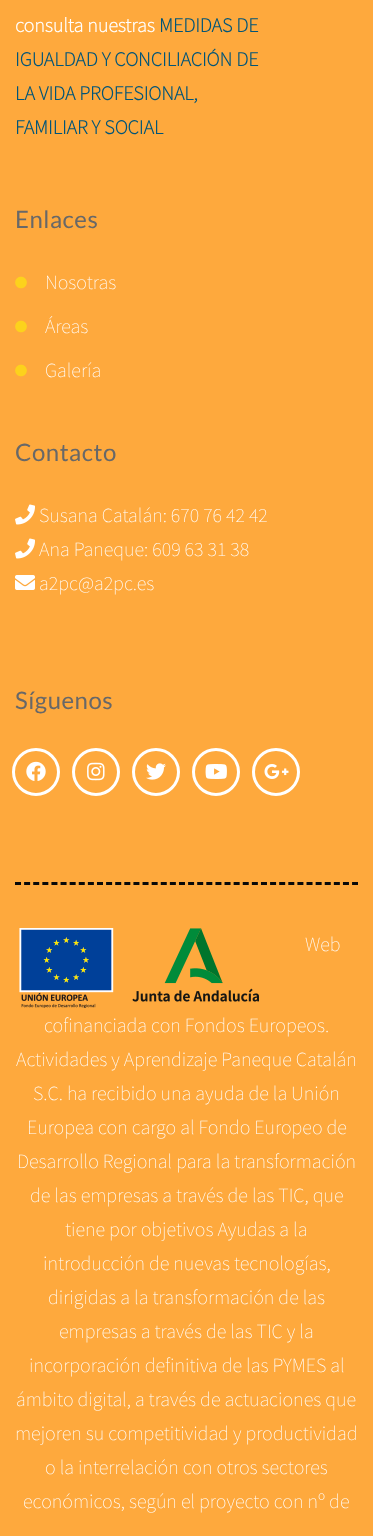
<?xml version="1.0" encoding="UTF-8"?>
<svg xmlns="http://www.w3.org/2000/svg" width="373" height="1536">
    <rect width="100%" height="100%" fill="#FEA93D"/>
    <text x="15" y="32" font-family="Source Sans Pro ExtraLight" font-size="20" font-weight="700" fill="#FFFFFF">consulta nuestras</text>
    <text x="159" y="32" font-family="Source Sans Pro ExtraLight" font-size="20" font-weight="700" fill="#005579">MEDIDAS DE</text>
    <text font-family="Source Sans Pro ExtraLight" font-size="20" font-weight="700" fill="#005579">
        <tspan x="15" y="66">IGUALDAD Y CONCILIACIÓN DE</tspan>
        <tspan x="15" y="100">LA VIDA PROFESIONAL,</tspan>
        <tspan x="15" y="134">FAMILIAR Y SOCIAL</tspan>
    </text>
    <text x="15" y="228" font-family="Lato" font-size="24" letter-spacing="0.5" fill="#686868">Enlaces</text>
    <image x="15" y="276" width="12" height="13" href="img_01.png"/>
    <text x="45" y="289" font-family="Source Sans Pro ExtraLight" font-size="20" font-weight="200" fill="#FFFFFF">Nosotras</text>
    <image x="15" y="320" width="12" height="13" href="img_01.png"/>
    <text x="45" y="333" font-family="Source Sans Pro ExtraLight" font-size="20" font-weight="200" fill="#FFFFFF">Áreas</text>
    <image x="15" y="364" width="12" height="13" href="img_01.png"/>
    <text x="45" y="377" font-family="Source Sans Pro ExtraLight" font-size="20" font-weight="200" fill="#FFFFFF">Galería</text>
    <text x="15" y="461" font-family="Lato" font-size="24" letter-spacing="0.5" fill="#686868">Contacto</text>
    <image x="15" y="504" width="20" height="21" href="img_02.png"/>
    <text x="39" y="522" font-family="Source Sans Pro ExtraLight" font-size="20" font-weight="200" fill="#FFFFFF">Susana Catalán: 670 76 42 42</text>
    <image x="15" y="538" width="20" height="21" href="img_02.png"/>
    <text x="39" y="556" font-family="Source Sans Pro ExtraLight" font-size="20" font-weight="200" fill="#FFFFFF">Ana Paneque: 609 63 31 38</text>
    <image x="15" y="575" width="20" height="15" href="img_03.png"/>
    <text x="39" y="590" font-family="Source Sans Pro ExtraLight" font-size="20" font-weight="200" fill="#FFFFFF">a2pc@a2pc.es</text>
    <text x="15" y="709" font-family="Lato" font-size="24" letter-spacing="0.5" fill="#686868">Síguenos</text>
    <circle cx="36" cy="772" r="22.5" fill="none" stroke="#FFFFFF" stroke-width="3"/>
    <image x="26" y="761" width="20" height="20" href="img_04.png"/>
    <circle cx="96" cy="772" r="22.5" fill="none" stroke="#FFFFFF" stroke-width="3"/>
    <image x="87" y="762" width="18" height="19" href="img_05.png"/>
    <circle cx="156" cy="772" r="22.5" fill="none" stroke="#FFFFFF" stroke-width="3"/>
    <image x="146" y="763" width="20" height="17" href="img_06.png"/>
    <circle cx="216" cy="772" r="22.5" fill="none" stroke="#FFFFFF" stroke-width="3"/>
    <image x="205" y="764" width="22" height="15" href="img_07.png"/>
    <circle cx="276" cy="772" r="22.5" fill="none" stroke="#FFFFFF" stroke-width="3"/>
    <image x="264" y="764" width="25" height="15" href="img_08.png"/>
    <path d="M 15 883.5 H 358" fill="none" stroke="#090909" stroke-width="3" stroke-dasharray="6 3.11"/>
    <image x="19" y="928" width="240" height="80" href="img_09.png"/>
    <text x="305" y="951" font-family="Source Sans Pro ExtraLight" font-size="20" font-weight="200" fill="#FFFFFF">Web</text>
    <text x="44" y="1032" font-family="Source Sans Pro ExtraLight" font-size="20" font-weight="200" fill="#FFFFFF">cofinanciada con Fondos Europeos.</text>
    <text x="16" y="1066" font-family="Source Sans Pro ExtraLight" font-size="20" font-weight="200" fill="#FFFFFF">Actividades y Aprendizaje Paneque Catalán</text>
    <text x="33" y="1100" font-family="Source Sans Pro ExtraLight" font-size="20" font-weight="200" fill="#FFFFFF">S.C. ha recibido una ayuda de la Unión</text>
    <text x="27" y="1134" font-family="Source Sans Pro ExtraLight" font-size="20" font-weight="200" fill="#FFFFFF">Europea con cargo al Fondo Europeo de</text>
    <text x="17" y="1168" font-family="Source Sans Pro ExtraLight" font-size="20" font-weight="200" fill="#FFFFFF">Desarrollo Regional para la transformación</text>
    <text x="30" y="1202" font-family="Source Sans Pro ExtraLight" font-size="20" font-weight="200" fill="#FFFFFF">de las empresas a través de las TIC, que</text>
    <text x="65" y="1236" font-family="Source Sans Pro ExtraLight" font-size="20" font-weight="200" fill="#FFFFFF">tiene por objetivos Ayudas a la</text>
    <text x="43" y="1270" font-family="Source Sans Pro ExtraLight" font-size="20" font-weight="200" fill="#FFFFFF">introducción de nuevas tecnologías,</text>
    <text x="48" y="1304" font-family="Source Sans Pro ExtraLight" font-size="20" font-weight="200" fill="#FFFFFF">dirigidas a la transformación de las</text>
    <text x="59" y="1338" font-family="Source Sans Pro ExtraLight" font-size="20" font-weight="200" fill="#FFFFFF">empresas a través de las TIC y la</text>
    <text x="29" y="1372" font-family="Source Sans Pro ExtraLight" font-size="20" font-weight="200" fill="#FFFFFF">incorporación definitiva de las PYMES al</text>
    <text x="16" y="1406" font-family="Source Sans Pro ExtraLight" font-size="20" font-weight="200" fill="#FFFFFF">ámbito digital, a través de actuaciones que</text>
    <text x="15" y="1440" font-family="Source Sans Pro ExtraLight" font-size="20" font-weight="200" fill="#FFFFFF">mejoren su competitividad y productividad</text>
    <text x="45" y="1474" font-family="Source Sans Pro ExtraLight" font-size="20" font-weight="200" fill="#FFFFFF">o la interrelación con otros sectores</text>
    <text x="23" y="1508" font-family="Source Sans Pro ExtraLight" font-size="20" font-weight="200" fill="#FFFFFF">económicos, según el proyecto con nº de</text>
</svg>
